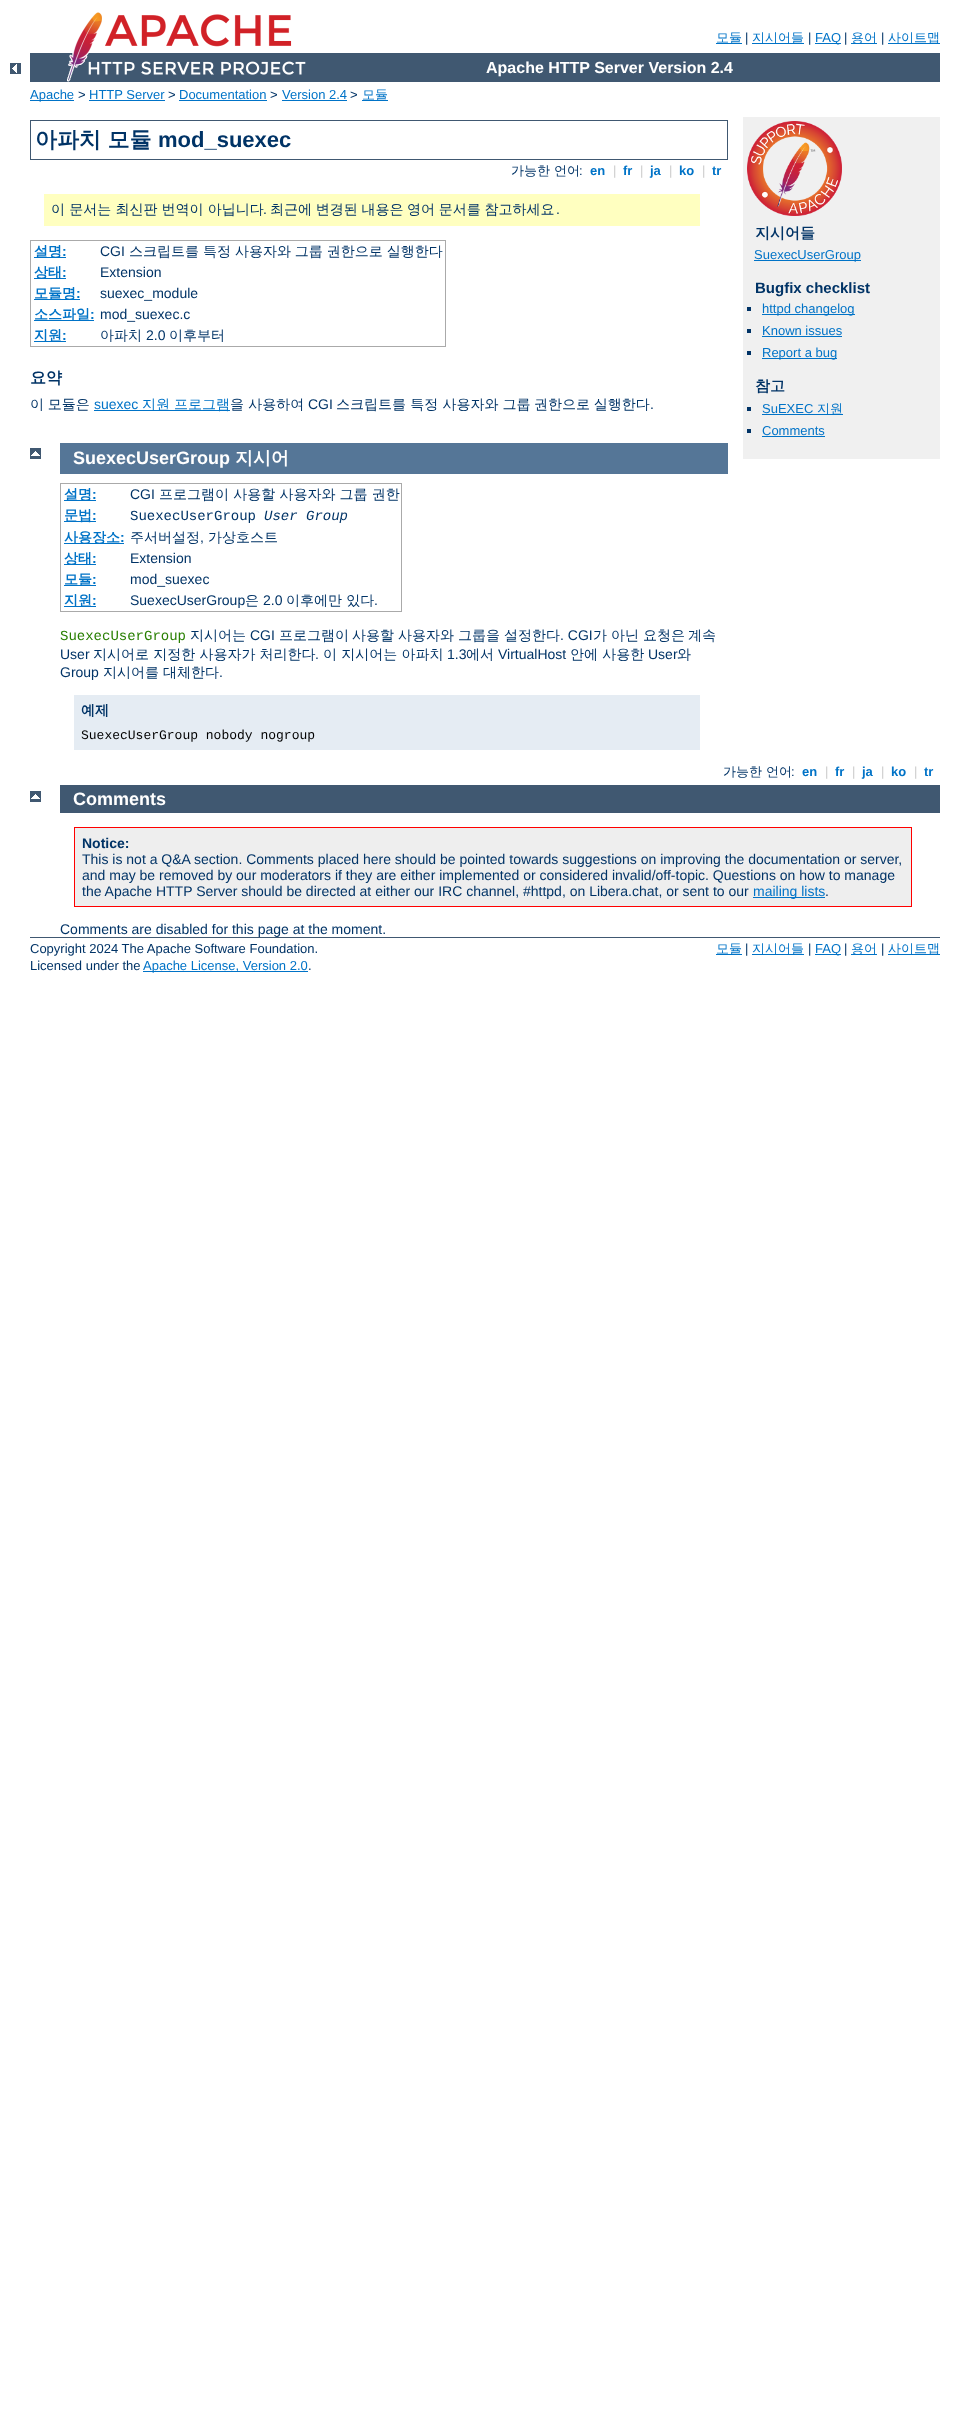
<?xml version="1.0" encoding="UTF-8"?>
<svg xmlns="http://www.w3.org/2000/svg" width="954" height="2434">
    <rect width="100%" height="100%" fill="#FFFFFF"/>
    <image x="10" y="63" width="11" height="11" href="img_01.png"/>
    <rect x="30" y="53" width="910" height="29" fill="#405871"/>
    <image x="67" y="12" width="239" height="70" href="img_02.png"/>
    <rect x="716" y="43" width="26" height="1" fill="#0073C7"/>
    <text x="716" y="42" font-family="WenQuanYi Zen Hei" font-size="13" font-weight="500" fill="#0073C7">모듈</text>
    <text x="745" y="42" font-family="Liberation Sans" font-size="13" fill="#003366">|</text>
    <rect x="752" y="43" width="52" height="1" fill="#0073C7"/>
    <text x="752" y="42" font-family="WenQuanYi Zen Hei" font-size="13" font-weight="500" fill="#0073C7">지시어들</text>
    <text x="808" y="42" font-family="Liberation Sans" font-size="13" fill="#003366">|</text>
    <rect x="815" y="43" width="26" height="1" fill="#0073C7"/>
    <text x="815" y="42" font-family="Liberation Sans" font-size="13" fill="#0073C7">FAQ</text>
    <text x="844" y="42" font-family="Liberation Sans" font-size="13" fill="#003366">|</text>
    <rect x="851" y="43" width="26" height="1" fill="#0073C7"/>
    <text x="851" y="42" font-family="WenQuanYi Zen Hei" font-size="13" font-weight="500" fill="#0073C7">용어</text>
    <text x="881" y="42" font-family="Liberation Sans" font-size="13" fill="#003366">|</text>
    <rect x="888" y="43" width="52" height="1" fill="#0073C7"/>
    <text x="888" y="42" font-family="WenQuanYi Zen Hei" font-size="13" font-weight="500" fill="#0073C7">사이트맵</text>
    <text x="486" y="73" font-family="Liberation Sans" font-size="16" font-weight="700" fill="#FFFFFF">Apache HTTP Server Version 2.4</text>
    <rect x="30" y="100" width="44" height="1" fill="#0073C7"/>
    <text x="30" y="99" font-family="Liberation Sans" font-size="13" fill="#0073C7">Apache</text>
    <text x="78" y="99" font-family="Liberation Sans" font-size="13" fill="#003366">&gt;</text>
    <text x="89" y="99" font-family="Liberation Sans" font-size="13" fill="#0073C7">HTTP Server</text>
    <rect x="89" y="100" width="76" height="1" fill="#0073C7"/>
    <text x="168" y="99" font-family="Liberation Sans" font-size="13" fill="#003366">&gt;</text>
    <text x="179" y="99" font-family="Liberation Sans" font-size="13" fill="#0073C7">Documentation</text>
    <rect x="179" y="100" width="88" height="1" fill="#0073C7"/>
    <text x="270" y="99" font-family="Liberation Sans" font-size="13" fill="#003366">&gt;</text>
    <text x="282" y="99" font-family="Liberation Sans" font-size="13" fill="#0073C7">Version 2.4</text>
    <rect x="282" y="100" width="65" height="1" fill="#0073C7"/>
    <text x="350" y="99" font-family="Liberation Sans" font-size="13" fill="#003366">&gt;</text>
    <rect x="362" y="100" width="26" height="1" fill="#0073C7"/>
    <text x="362" y="99" font-family="WenQuanYi Zen Hei" font-size="13" font-weight="500" fill="#0073C7">모듈</text>
    <rect x="30.5" y="120.5" width="697" height="39" fill="none" stroke="#405871"/>
    <text x="35" y="147" font-family="WenQuanYi Zen Hei" font-size="22" font-weight="700" fill="#003366">아파치 모듈</text>
    <text x="158" y="147" font-family="Liberation Sans" font-size="22" font-weight="700" fill="#003366">mod_suexec</text>
    <text x="511" y="175" font-family="WenQuanYi Zen Hei" font-size="13" font-weight="500" fill="#003366">가능한 언어</text>
    <text x="579" y="175" font-family="Liberation Sans" font-size="13" fill="#003366">:</text>
    <text x="590" y="175" font-family="Liberation Sans" font-size="13" font-weight="700" fill="#0073C7">en</text>
    <text x="613" y="175" font-family="Liberation Sans" font-size="13" fill="#CCCCCC">|</text>
    <text x="623" y="175" font-family="Liberation Sans" font-size="13" font-weight="700" fill="#0073C7">fr</text>
    <text x="640" y="175" font-family="Liberation Sans" font-size="13" fill="#CCCCCC">|</text>
    <text x="650" y="175" font-family="Liberation Sans" font-size="13" font-weight="700" fill="#0073C7">ja</text>
    <text x="669" y="175" font-family="Liberation Sans" font-size="13" fill="#CCCCCC">|</text>
    <text x="679" y="175" font-family="Liberation Sans" font-size="13" font-weight="700" fill="#0073C7">ko</text>
    <text x="702" y="175" font-family="Liberation Sans" font-size="13" fill="#CCCCCC">|</text>
    <text x="712" y="175" font-family="Liberation Sans" font-size="13" font-weight="700" fill="#0073C7">tr</text>
    <rect x="44" y="194" width="656" height="32" fill="#FFFFC0"/>
    <text x="51" y="214" font-family="WenQuanYi Zen Hei" font-size="14" font-weight="500" fill="#003366">이 문서는 최신판 번역이 아닙니다</text>
    <text x="263" y="214" font-family="Liberation Sans" font-size="14" fill="#003366">.</text>
    <text x="270" y="214" word-spacing="-0.5" font-family="WenQuanYi Zen Hei" font-size="14" font-weight="500" fill="#003366">최근에 변경된 내용은 영어 문서를 참고하세요</text>
    <text x="556" y="214" font-family="Liberation Sans" font-size="14" fill="#003366">.</text>
    <rect x="30" y="240" width="416" height="1" fill="#AAAAAA"/>
    <rect x="445" y="240" width="1" height="107" fill="#AAAAAA"/>
    <rect x="30" y="346" width="416" height="1" fill="#AAAAAA"/>
    <rect x="30" y="240" width="1" height="107" fill="#AAAAAA"/>
    <rect x="34" y="257" width="32" height="1" fill="#0073C7"/>
    <text x="34" y="256" font-family="WenQuanYi Zen Hei" font-size="14" font-weight="700" fill="#0073C7">설명</text>
    <text x="62" y="256" font-family="Liberation Sans" font-size="14" font-weight="700" fill="#0073C7">:</text>
    <text x="100" y="256" font-family="Liberation Sans" font-size="14" fill="#003366">CGI</text>
    <text x="129" y="256" word-spacing="-0.25" font-family="WenQuanYi Zen Hei" font-size="14" font-weight="500" fill="#003366">스크립트를 특정 사용자와 그룹 권한으로 실행한다</text>
    <rect x="34" y="278" width="32" height="1" fill="#0073C7"/>
    <text x="34" y="277" font-family="WenQuanYi Zen Hei" font-size="14" font-weight="700" fill="#0073C7">상태</text>
    <text x="62" y="277" font-family="Liberation Sans" font-size="14" font-weight="700" fill="#0073C7">:</text>
    <text x="100" y="277" font-family="Liberation Sans" font-size="14" fill="#003366">Extension</text>
    <rect x="34" y="299" width="46" height="1" fill="#0073C7"/>
    <text x="34" y="298" font-family="WenQuanYi Zen Hei" font-size="14" font-weight="700" fill="#0073C7">모듈명</text>
    <text x="76" y="298" font-family="Liberation Sans" font-size="14" font-weight="700" fill="#0073C7">:</text>
    <text x="100" y="298" font-family="Liberation Sans" font-size="14" fill="#003366">suexec_module</text>
    <rect x="34" y="320" width="60" height="1" fill="#0073C7"/>
    <text x="34" y="319" font-family="WenQuanYi Zen Hei" font-size="14" font-weight="700" fill="#0073C7">소스파일</text>
    <text x="90" y="319" font-family="Liberation Sans" font-size="14" font-weight="700" fill="#0073C7">:</text>
    <text x="100" y="319" font-family="Liberation Sans" font-size="14" fill="#003366">mod_suexec.c</text>
    <rect x="34" y="341" width="32" height="1" fill="#0073C7"/>
    <text x="34" y="340" font-family="WenQuanYi Zen Hei" font-size="14" font-weight="700" fill="#0073C7">지원</text>
    <text x="62" y="340" font-family="Liberation Sans" font-size="14" font-weight="700" fill="#0073C7">:</text>
    <text x="100" y="340" font-family="WenQuanYi Zen Hei" font-size="14" font-weight="500" fill="#003366">아파치</text>
    <text x="146" y="340" font-family="Liberation Sans" font-size="14" fill="#003366">2.0</text>
    <text x="169" y="340" font-family="WenQuanYi Zen Hei" font-size="14" font-weight="500" fill="#003366">이후부터</text>
    <text x="30" y="383" font-family="WenQuanYi Zen Hei" font-size="16" font-weight="700" fill="#003366">요약</text>
    <text x="30" y="409" word-spacing="-0.5" font-family="WenQuanYi Zen Hei" font-size="14" font-weight="500" fill="#003366">이 모듈은</text>
    <text x="94" y="409" font-family="Liberation Sans" font-size="14" fill="#0073C7">suexec</text>
    <rect x="94" y="410" width="136" height="1" fill="#0073C7"/>
    <text x="142" y="409" font-family="WenQuanYi Zen Hei" font-size="14" font-weight="500" fill="#0073C7">지원</text>
    <text x="174" y="409" font-family="WenQuanYi Zen Hei" font-size="14" font-weight="500" fill="#0073C7">프로그램</text>
    <text x="230" y="409" font-family="WenQuanYi Zen Hei" font-size="14" font-weight="500" fill="#003366">을 사용하여</text>
    <text x="308" y="409" font-family="Liberation Sans" font-size="14" fill="#003366">CGI</text>
    <text x="336" y="409" font-family="WenQuanYi Zen Hei" font-size="14" font-weight="500" fill="#003366">스크립트를 특정 사용자와 그룹</text>
    <text x="534" y="409" word-spacing="-0.5" font-family="WenQuanYi Zen Hei" font-size="14" font-weight="500" fill="#003366">권한으로 실행한다</text>
    <text x="650" y="409" font-family="Liberation Sans" font-size="14" fill="#003366">.</text>
    <rect x="743" y="117" width="197" height="342" fill="#F0F0F0"/>
    <image x="747" y="121" width="95" height="95" href="img_03.png"/>
    <text x="755" y="238" font-family="WenQuanYi Zen Hei" font-size="15" font-weight="700" fill="#003366">지시어들</text>
    <rect x="754" y="260" width="107" height="1" fill="#0073C7"/>
    <text x="754" y="259" font-family="Liberation Sans" font-size="13" fill="#0073C7">SuexecUserGroup</text>
    <text x="755" y="293" font-family="Liberation Sans" font-size="15" font-weight="700" fill="#003366">Bugfix checklist</text>
    <rect x="747" y="307" width="4" height="4" fill="#003366"/>
    <rect x="762" y="314" width="93" height="1" fill="#0073C7"/>
    <text x="762" y="313" font-family="Liberation Sans" font-size="13" fill="#0073C7">httpd changelog</text>
    <rect x="747" y="329" width="4" height="4" fill="#003366"/>
    <text x="762" y="335" font-family="Liberation Sans" font-size="13" fill="#0073C7">Known issues</text>
    <rect x="762" y="336" width="80" height="1" fill="#0073C7"/>
    <rect x="747" y="351" width="4" height="4" fill="#003366"/>
    <rect x="762" y="358" width="75" height="1" fill="#0073C7"/>
    <text x="762" y="357" font-family="Liberation Sans" font-size="13" fill="#0073C7">Report a bug</text>
    <text x="755" y="391" font-family="WenQuanYi Zen Hei" font-size="15" font-weight="700" fill="#003366">참고</text>
    <rect x="747" y="407" width="4" height="4" fill="#003366"/>
    <text x="762" y="413" font-family="Liberation Sans" font-size="13" fill="#0073C7">SuEXEC</text>
    <rect x="762" y="414" width="81" height="1" fill="#0073C7"/>
    <text x="817" y="413" font-family="WenQuanYi Zen Hei" font-size="13" font-weight="500" fill="#0073C7">지원</text>
    <rect x="747" y="429" width="4" height="4" fill="#003366"/>
    <text x="762" y="435" font-family="Liberation Sans" font-size="13" fill="#0073C7">Comments</text>
    <rect x="762" y="436" width="63" height="1" fill="#0073C7"/>
    <image x="30" y="448" width="11" height="11" href="img_04.png"/>
    <rect x="60" y="443" width="668" height="31" fill="#557697"/>
    <text x="73" y="464" font-family="Liberation Sans" font-size="18" font-weight="700" fill="#FFFFFF">SuexecUserGroup</text>
    <text x="235" y="464" font-family="WenQuanYi Zen Hei" font-size="18" font-weight="700" fill="#FFFFFF">지시어</text>
    <rect x="60" y="483" width="342" height="1" fill="#AAAAAA"/>
    <rect x="401" y="483" width="1" height="129" fill="#AAAAAA"/>
    <rect x="60" y="611" width="342" height="1" fill="#AAAAAA"/>
    <rect x="60" y="483" width="1" height="129" fill="#AAAAAA"/>
    <rect x="64" y="500" width="32" height="1" fill="#0073C7"/>
    <text x="64" y="499" font-family="WenQuanYi Zen Hei" font-size="14" font-weight="700" fill="#0073C7">설명</text>
    <text x="92" y="499" font-family="Liberation Sans" font-size="14" font-weight="700" fill="#0073C7">:</text>
    <text x="130" y="499" font-family="Liberation Sans" font-size="14" fill="#003366">CGI</text>
    <text x="159" y="499" font-family="WenQuanYi Zen Hei" font-size="14" font-weight="500" fill="#003366">프로그램이 사용할 사용자와 그룹 권한</text>
    <rect x="64" y="521" width="32" height="1" fill="#0073C7"/>
    <text x="64" y="520" font-family="WenQuanYi Zen Hei" font-size="14" font-weight="700" fill="#0073C7">문법</text>
    <text x="92" y="520" font-family="Liberation Sans" font-size="14" font-weight="700" fill="#0073C7">:</text>
    <text x="130" y="520" font-family="Liberation Mono" font-size="14" fill="#003366">SuexecUserGroup</text>
    <text x="264" y="520" font-family="Liberation Mono" font-size="14" font-style="italic" fill="#003366">User Group</text>
    <rect x="64" y="543" width="60" height="1" fill="#0073C7"/>
    <text x="64" y="542" font-family="WenQuanYi Zen Hei" font-size="14" font-weight="700" fill="#0073C7">사용장소</text>
    <text x="120" y="542" font-family="Liberation Sans" font-size="14" font-weight="700" fill="#0073C7">:</text>
    <text x="130" y="542" font-family="WenQuanYi Zen Hei" font-size="14" font-weight="500" fill="#003366">주서버설정</text>
    <text x="200" y="542" font-family="Liberation Sans" font-size="14" fill="#003366">,</text>
    <text x="208" y="542" font-family="WenQuanYi Zen Hei" font-size="14" font-weight="500" fill="#003366">가상호스트</text>
    <rect x="64" y="564" width="32" height="1" fill="#0073C7"/>
    <text x="64" y="563" font-family="WenQuanYi Zen Hei" font-size="14" font-weight="700" fill="#0073C7">상태</text>
    <text x="92" y="563" font-family="Liberation Sans" font-size="14" font-weight="700" fill="#0073C7">:</text>
    <text x="130" y="563" font-family="Liberation Sans" font-size="14" fill="#003366">Extension</text>
    <rect x="64" y="585" width="32" height="1" fill="#0073C7"/>
    <text x="64" y="584" font-family="WenQuanYi Zen Hei" font-size="14" font-weight="700" fill="#0073C7">모듈</text>
    <text x="92" y="584" font-family="Liberation Sans" font-size="14" font-weight="700" fill="#0073C7">:</text>
    <text x="130" y="584" font-family="Liberation Sans" font-size="14" fill="#003366">mod_suexec</text>
    <rect x="64" y="606" width="32" height="1" fill="#0073C7"/>
    <text x="64" y="605" font-family="WenQuanYi Zen Hei" font-size="14" font-weight="700" fill="#0073C7">지원</text>
    <text x="92" y="605" font-family="Liberation Sans" font-size="14" font-weight="700" fill="#0073C7">:</text>
    <text x="130" y="605" font-family="Liberation Sans" font-size="14" fill="#003366">SuexecUserGroup</text>
    <text x="245" y="605" font-family="WenQuanYi Zen Hei" font-size="14" font-weight="500" fill="#003366">은</text>
    <text x="263" y="605" font-family="Liberation Sans" font-size="14" fill="#003366">2.0</text>
    <text x="286" y="605" font-family="WenQuanYi Zen Hei" font-size="14" font-weight="500" fill="#003366">이후에만 있다</text>
    <text x="374" y="605" font-family="Liberation Sans" font-size="14" fill="#003366">.</text>
    <text x="60" y="640" font-family="Liberation Mono" font-size="14" fill="#287F00">SuexecUserGroup</text>
    <text x="190" y="640" font-family="WenQuanYi Zen Hei" font-size="14" font-weight="500" fill="#003366">지시어는</text>
    <text x="250" y="640" font-family="Liberation Sans" font-size="14" fill="#003366">CGI</text>
    <text x="279" y="640" font-family="WenQuanYi Zen Hei" font-size="14" font-weight="500" fill="#003366">프로그램이</text>
    <text x="352" y="640" font-family="WenQuanYi Zen Hei" font-size="14" font-weight="500" fill="#003366">사용할</text>
    <text x="398" y="640" font-family="WenQuanYi Zen Hei" font-size="14" font-weight="500" fill="#003366">사용자와</text>
    <text x="458" y="640" font-family="WenQuanYi Zen Hei" font-size="14" font-weight="500" fill="#003366">그룹을</text>
    <text x="504" y="640" font-family="WenQuanYi Zen Hei" font-size="14" font-weight="500" fill="#003366">설정한다</text>
    <text x="560" y="640" font-family="Liberation Sans" font-size="14" fill="#003366">. CGI</text>
    <text x="593" y="640" font-family="WenQuanYi Zen Hei" font-size="14" font-weight="500" fill="#003366">가</text>
    <text x="611" y="640" font-family="WenQuanYi Zen Hei" font-size="14" font-weight="500" fill="#003366">아닌</text>
    <text x="643" y="640" font-family="WenQuanYi Zen Hei" font-size="14" font-weight="500" fill="#003366">요청은</text>
    <text x="688" y="640" font-family="WenQuanYi Zen Hei" font-size="14" font-weight="500" fill="#003366">계속</text>
    <text x="60" y="659" font-family="Liberation Sans" font-size="14" fill="#003366">User</text>
    <text x="93" y="659" font-family="WenQuanYi Zen Hei" font-size="14" font-weight="500" fill="#003366">지시어로 지정한 사용자가 처리한다</text>
    <text x="315" y="659" font-family="Liberation Sans" font-size="14" fill="#003366">.</text>
    <text x="323" y="659" font-family="WenQuanYi Zen Hei" font-size="14" font-weight="500" fill="#003366">이 지시어는 아파치</text>
    <text x="447" y="659" font-family="Liberation Sans" font-size="14" fill="#003366">1.3</text>
    <text x="466" y="659" font-family="WenQuanYi Zen Hei" font-size="14" font-weight="500" fill="#003366">에서</text>
    <text x="498" y="659" font-family="Liberation Sans" font-size="14" fill="#003366">VirtualHost</text>
    <text x="570" y="659" font-family="WenQuanYi Zen Hei" font-size="14" font-weight="500" fill="#003366">안에 사용한</text>
    <text x="648" y="659" font-family="Liberation Sans" font-size="14" fill="#003366">User</text>
    <text x="677" y="659" font-family="WenQuanYi Zen Hei" font-size="14" font-weight="500" fill="#003366">와</text>
    <text x="60" y="677" font-family="Liberation Sans" font-size="14" fill="#003366">Group</text>
    <text x="103" y="677" font-family="WenQuanYi Zen Hei" font-size="14" font-weight="500" fill="#003366">지시어를</text>
    <text x="163" y="677" font-family="WenQuanYi Zen Hei" font-size="14" font-weight="500" fill="#003366">대체한다</text>
    <text x="219" y="677" font-family="Liberation Sans" font-size="14" fill="#003366">.</text>
    <rect x="74" y="695" width="626" height="55" fill="#E5ECF3"/>
    <text x="81" y="715" font-family="WenQuanYi Zen Hei" font-size="14" font-weight="700" fill="#003366">예제</text>
    <text x="81" y="739" font-family="Liberation Mono" font-size="13" fill="#000000">SuexecUserGroup nobody nogroup</text>
    <text x="723" y="776" font-family="WenQuanYi Zen Hei" font-size="13" font-weight="500" fill="#003366">가능한 언어</text>
    <text x="791" y="776" font-family="Liberation Sans" font-size="13" fill="#003366">:</text>
    <text x="802" y="776" font-family="Liberation Sans" font-size="13" font-weight="700" fill="#0073C7">en</text>
    <text x="825" y="776" font-family="Liberation Sans" font-size="13" fill="#CCCCCC">|</text>
    <text x="835" y="776" font-family="Liberation Sans" font-size="13" font-weight="700" fill="#0073C7">fr</text>
    <text x="852" y="776" font-family="Liberation Sans" font-size="13" fill="#CCCCCC">|</text>
    <text x="862" y="776" font-family="Liberation Sans" font-size="13" font-weight="700" fill="#0073C7">ja</text>
    <text x="881" y="776" font-family="Liberation Sans" font-size="13" fill="#CCCCCC">|</text>
    <text x="891" y="776" font-family="Liberation Sans" font-size="13" font-weight="700" fill="#0073C7">ko</text>
    <text x="914" y="776" font-family="Liberation Sans" font-size="13" fill="#CCCCCC">|</text>
    <text x="924" y="776" font-family="Liberation Sans" font-size="13" font-weight="700" fill="#0073C7">tr</text>
    <image x="30" y="791" width="11" height="11" href="img_04.png"/>
    <rect x="60" y="785" width="880" height="28" fill="#405871"/>
    <text x="73" y="805" font-family="Liberation Sans" font-size="18" font-weight="700" fill="#FFFFFF">Comments</text>
    <rect x="74.5" y="827.5" width="837" height="79" fill="#EEEEEE" stroke="#FF0000"/>
    <text x="82" y="848" font-family="Liberation Sans" font-size="14" font-weight="700" fill="#003366">Notice:</text>
    <text font-family="Liberation Sans" font-size="14" fill="#003366">
        <tspan x="82" y="864">This is not a Q&amp;A section. Comments placed here should be pointed towards suggestions on improving the documentation or server,</tspan>
        <tspan x="82" y="880">and may be removed by our moderators if they are either implemented or considered invalid/off-topic. Questions on how to manage</tspan>
        <tspan x="82" y="896">the Apache HTTP Server should be directed at either our IRC channel, #httpd, on Libera.chat, or sent to our</tspan>
    </text>
    <rect x="753" y="897" width="72" height="1" fill="#0073C7"/>
    <text x="753" y="896" font-family="Liberation Sans" font-size="14" fill="#0073C7">mailing lists</text>
    <text x="825" y="896" font-family="Liberation Sans" font-size="14" fill="#003366">.</text>
    <text x="60" y="934" font-family="Liberation Sans" font-size="14" fill="#003366">Comments are disabled for this page at the moment.</text>
    <rect x="30" y="937" width="910" height="1" fill="#405871"/>
    <text font-family="Liberation Sans" font-size="13" fill="#003366">
        <tspan x="30" y="953">Copyright 2024 The Apache Software Foundation.</tspan>
        <tspan x="30" y="970">Licensed under the</tspan>
    </text>
    <rect x="143" y="971" width="165" height="1" fill="#0073C7"/>
    <text x="143" y="970" font-family="Liberation Sans" font-size="13" fill="#0073C7">Apache License, Version 2.0</text>
    <text x="308" y="970" font-family="Liberation Sans" font-size="13" fill="#003366">.</text>
    <rect x="716" y="954" width="26" height="1" fill="#0073C7"/>
    <text x="716" y="953" font-family="WenQuanYi Zen Hei" font-size="13" font-weight="500" fill="#0073C7">모듈</text>
    <text x="745" y="953" font-family="Liberation Sans" font-size="13" fill="#003366">|</text>
    <rect x="752" y="954" width="52" height="1" fill="#0073C7"/>
    <text x="752" y="953" font-family="WenQuanYi Zen Hei" font-size="13" font-weight="500" fill="#0073C7">지시어들</text>
    <text x="808" y="953" font-family="Liberation Sans" font-size="13" fill="#003366">|</text>
    <rect x="815" y="954" width="26" height="1" fill="#0073C7"/>
    <text x="815" y="953" font-family="Liberation Sans" font-size="13" fill="#0073C7">FAQ</text>
    <text x="844" y="953" font-family="Liberation Sans" font-size="13" fill="#003366">|</text>
    <rect x="851" y="954" width="26" height="1" fill="#0073C7"/>
    <text x="851" y="953" font-family="WenQuanYi Zen Hei" font-size="13" font-weight="500" fill="#0073C7">용어</text>
    <text x="881" y="953" font-family="Liberation Sans" font-size="13" fill="#003366">|</text>
    <rect x="888" y="954" width="52" height="1" fill="#0073C7"/>
    <text x="888" y="953" font-family="WenQuanYi Zen Hei" font-size="13" font-weight="500" fill="#0073C7">사이트맵</text>
</svg>
